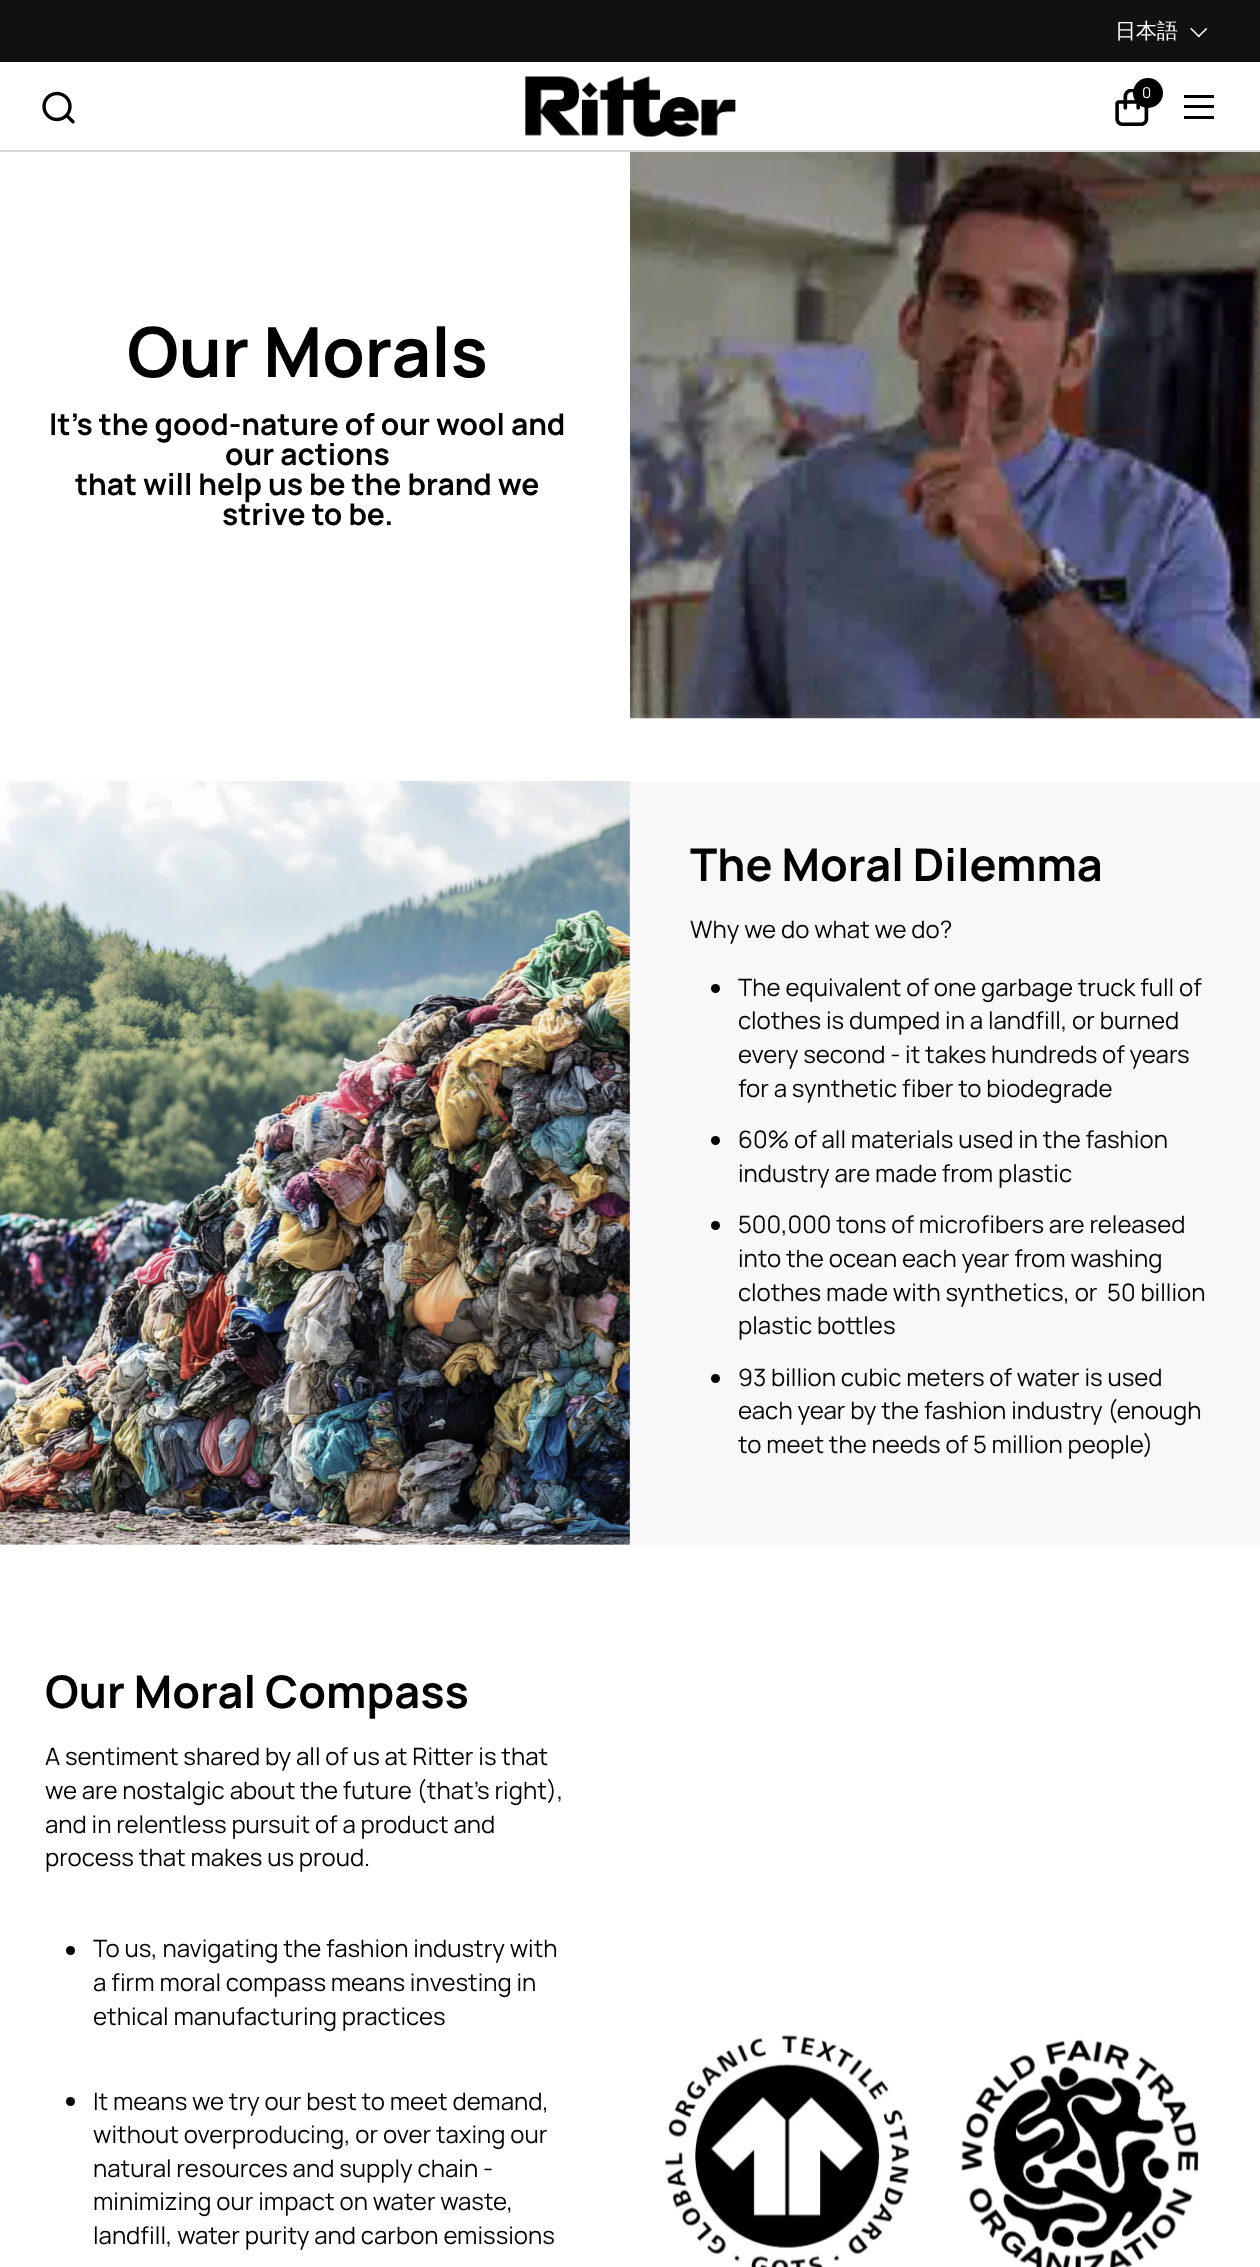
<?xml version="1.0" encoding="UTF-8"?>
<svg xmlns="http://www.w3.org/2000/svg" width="1260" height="2267">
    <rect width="100%" height="100%" fill="#FFFFFF"/>
    <rect x="0" y="0" width="1260" height="62" fill="#111111"/>
    <text x="1115" y="38" font-family="WenQuanYi Zen Hei" font-size="21" font-weight="500" fill="#FFFFFF">日本語</text>
    <image x="1190" y="27" width="18" height="11" href="img_01.png"/>
    <image x="42" y="91" width="33" height="33" href="img_02.png"/>
    <image x="525" y="76" width="211" height="61" href="img_03.png"/>
    <circle cx="1148" cy="93" r="15" fill="#000000"/>
    <text x="1142" y="98" font-family="Manrope" font-size="15" fill="#FFFFFF">0</text>
    <image x="1115" y="89" width="34" height="37" href="img_04.png"/>
    <rect x="1184" y="95" width="30" height="3" fill="#000000"/>
    <rect x="1184" y="105" width="30" height="3" fill="#000000"/>
    <rect x="1184" y="116" width="30" height="3" fill="#000000"/>
    <rect x="0" y="150" width="1260" height="2" fill="#D9D9D9"/>
    <text x="127" y="377" font-family="Manrope" font-size="69" font-weight="700" fill="#000000">Our Morals</text>
    <text x="49" y="435" font-family="Manrope" font-size="30" font-weight="700" fill="#000000">It’s the good-nature of our wool and</text>
    <text x="225" y="465" font-family="Manrope" font-size="30" font-weight="700" fill="#000000">our actions</text>
    <text x="75" y="495" font-family="Manrope" font-size="30" font-weight="700" fill="#000000">that will help us be the brand we</text>
    <text x="222" y="525" font-family="Manrope" font-size="30" font-weight="700" fill="#000000">strive to be.</text>
    <image x="630" y="152" width="630" height="567" href="img_05.png"/>
    <rect x="629" y="782" width="631" height="763" fill="#F8F8F8"/>
    <image x="0" y="781" width="630" height="764" href="img_06.png"/>
    <text x="690" y="881" font-family="Manrope" font-size="45" font-weight="700" fill="#000000">The Moral Dilemma</text>
    <text x="690" y="938" font-family="Manrope" font-size="24" fill="#000000">Why we do what we do?</text>
    <circle cx="715.5" cy="988.5" r="4.5" fill="#000000"/>
    <text font-family="Manrope" font-size="24" fill="#000000">
        <tspan x="738" y="996">The equivalent of one garbage truck full of</tspan>
        <tspan x="738" y="1029">clothes is dumped in a landfill, or burned</tspan>
        <tspan x="738" y="1063">every second - it takes hundreds of years</tspan>
        <tspan x="738" y="1097">for a synthetic fiber to biodegrade</tspan>
    </text>
    <circle cx="715.5" cy="1140.5" r="4.5" fill="#000000"/>
    <text font-family="Manrope" font-size="24" fill="#000000">
        <tspan x="738" y="1148">60% of all materials used in the fashion</tspan>
        <tspan x="738" y="1182">industry are made from plastic</tspan>
    </text>
    <circle cx="715.5" cy="1225.5" r="4.5" fill="#000000"/>
    <text font-family="Manrope" font-size="24" fill="#000000" xml:space="preserve"><tspan x="738" y="1233">500,000 tons of microfibers are released</tspan><tspan x="738" y="1267">into the ocean each year from washing</tspan><tspan x="738" y="1301">clothes made with synthetics, or  50 billion</tspan><tspan x="738" y="1334">plastic bottles</tspan></text>
    <circle cx="715.5" cy="1378.5" r="4.5" fill="#000000"/>
    <text font-family="Manrope" font-size="24" fill="#000000">
        <tspan x="738" y="1386">93 billion cubic meters of water is used</tspan>
        <tspan x="738" y="1419">each year by the fashion industry (enough</tspan>
        <tspan x="738" y="1453">to meet the needs of 5 million people)</tspan>
    </text>
    <text x="45" y="1708" font-family="Manrope" font-size="45" font-weight="700" fill="#000000">Our Moral Compass</text>
    <text font-family="Manrope" font-size="24" fill="#000000">
        <tspan x="45" y="1765">A sentiment shared by all of us at Ritter is that</tspan>
        <tspan x="45" y="1799">we are nostalgic about the future (that's right),</tspan>
        <tspan x="45" y="1833">and in relentless pursuit of a product and</tspan>
        <tspan x="45" y="1866">process that makes us proud.</tspan>
    </text>
    <circle cx="70.5" cy="1950.5" r="4.5" fill="#000000"/>
    <text font-family="Manrope" font-size="24" fill="#000000">
        <tspan x="93" y="1957">To us, navigating the fashion industry with</tspan>
        <tspan x="93" y="1991">a firm moral compass means investing in</tspan>
        <tspan x="93" y="2025">ethical manufacturing practices</tspan>
    </text>
    <circle cx="70.5" cy="2101.5" r="4.5" fill="#000000"/>
    <text font-family="Manrope" font-size="24" fill="#000000">
        <tspan x="93" y="2110">It means we try our best to meet demand,</tspan>
        <tspan x="93" y="2143">without overproducing, or over taxing our</tspan>
        <tspan x="93" y="2177">natural resources and supply chain -</tspan>
        <tspan x="93" y="2210">minimizing our impact on water waste,</tspan>
        <tspan x="93" y="2244">landfill, water purity and carbon emissions</tspan>
    </text>
    <image x="665" y="2035" width="534" height="232" href="img_07.png"/>
</svg>
